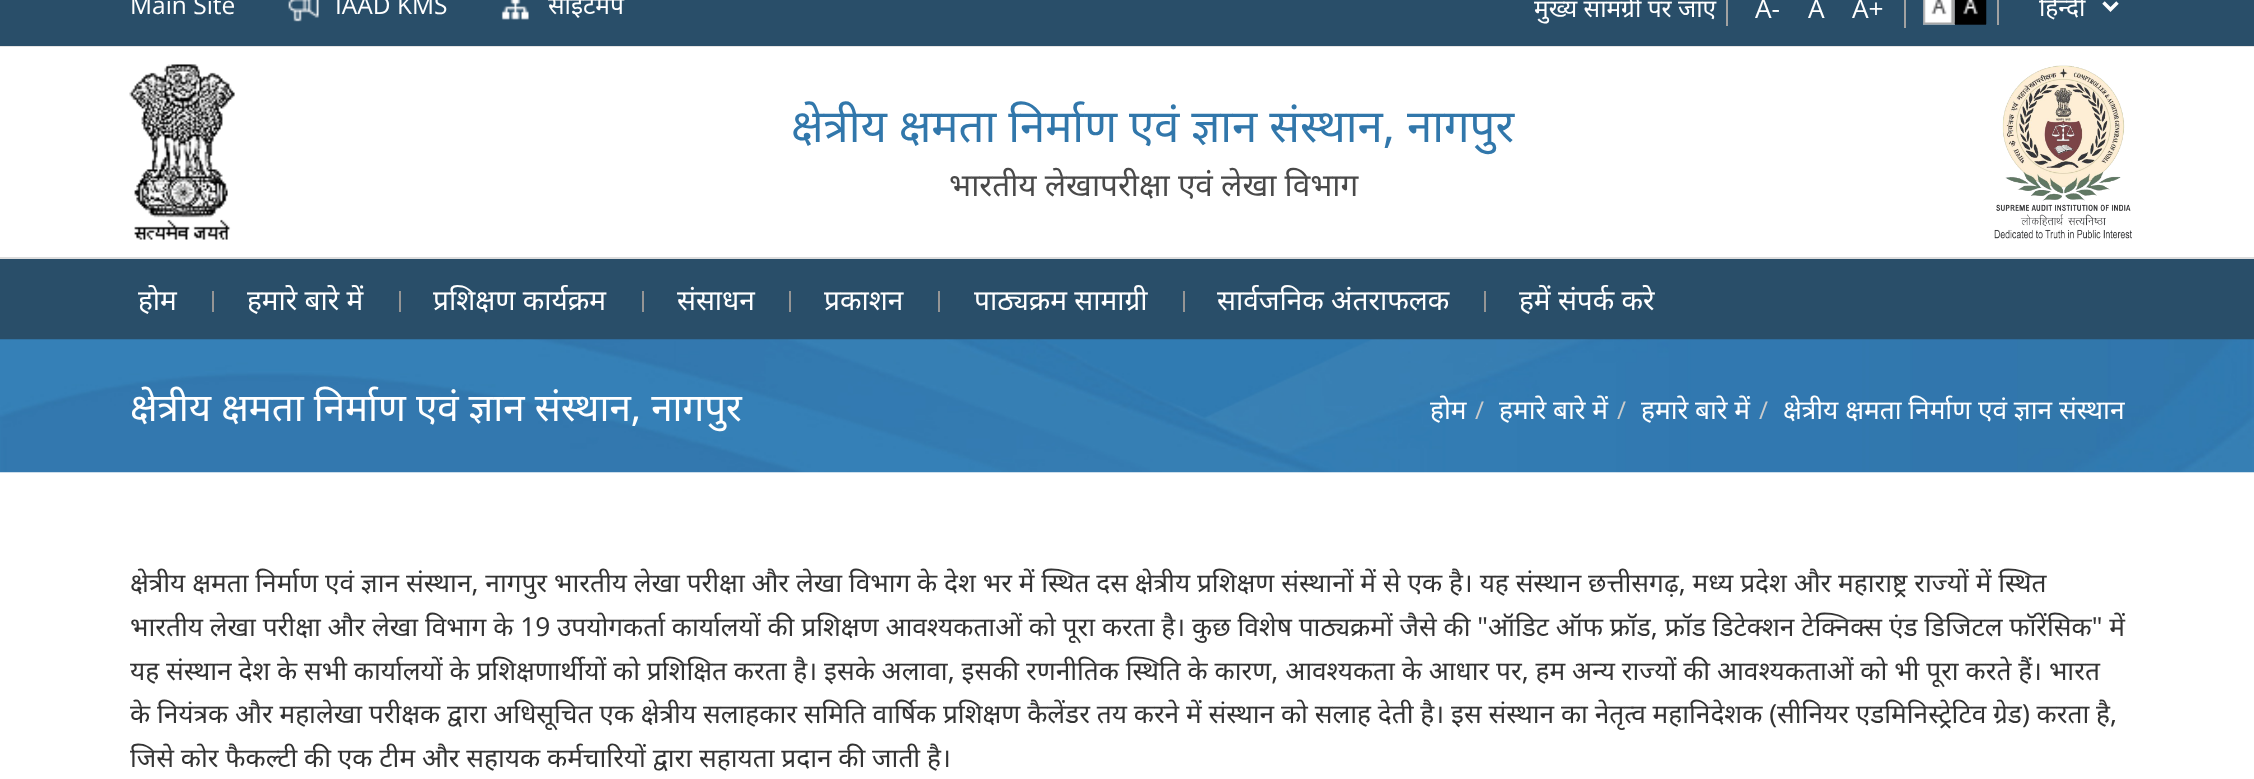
<?xml version="1.0" encoding="UTF-8"?>
<svg xmlns="http://www.w3.org/2000/svg" width="2254" height="779">
    <defs>
        <clipPath id="clip1"><rect x="2039" y="0" width="58" height="25"/></clipPath>
    </defs>
    <rect width="100%" height="100%" fill="#FFFFFF"/>
    <rect x="0" y="0" width="2254" height="46" fill="#294E69"/>
    <rect x="0" y="46" width="2254" height="1" fill="#E4E4E4"/>
    <text x="130" y="14" font-family="Open Sans" font-size="24.5" fill="#FFFFFF">Main Site</text>
    <image x="288" y="0" width="31" height="22" href="img_01.png"/>
    <text x="335" y="14" font-family="Open Sans" font-size="24.5" fill="#FFFFFF">IAAD KMS</text>
    <image x="501" y="0" width="28" height="20" href="img_02.png"/>
    <text x="548" y="14" font-family="Noto Sans" font-size="24.5" fill="#FFFFFF">साइटमैप</text>
    <rect x="1726" y="0" width="2" height="26" fill="#A1A1A1"/>
    <text x="1534" y="17" font-family="Noto Sans" font-size="24.5" fill="#FFFFFF">मुख्य सामग्री पर जाएं</text>
    <rect x="1904" y="0" width="2" height="28" fill="#A1A1A1"/>
    <text x="1755" y="18" font-family="Open Sans" font-size="26.25" fill="#FFFFFF">A-</text>
    <text x="1808" y="18" font-family="Open Sans" font-size="26.25" fill="#FFFFFF">A</text>
    <text x="1852" y="18" font-family="Open Sans" font-size="26.25" fill="#FFFFFF">A+</text>
    <rect x="1997" y="0" width="2" height="25" fill="#A1A1A1"/>
    <rect x="1923" y="0" width="32" height="25" fill="#90A3B1"/>
    <image x="1923" y="0" width="32" height="25" href="img_03.png"/>
    <rect x="1955" y="24" width="31" height="1" fill="#111E28"/>
    <image x="1954" y="0" width="33" height="25" href="img_04.png"/>
    <path d="M 2103.5 2.5 L 2110.5 9.5 L 2117.5 2.5" fill="none" stroke="#FFFFFF" stroke-width="3.5"/>
    <g clip-path="url(#clip1)">
        <text x="2039" y="16" font-family="Noto Sans" font-size="24.5" fill="#FFFFFF">हिन्दी</text>
    </g>
    <rect x="0" y="257" width="2254" height="2" fill="#DDDDDD"/>
    <image x="129" y="64" width="106" height="176" href="img_05.png"/>
    <text x="791" y="142" font-family="Noto Sans" font-size="45.5" fill="#3177AB">क्षेत्रीय क्षमता निर्माण एवं ज्ञान संस्थान, नागपुर</text>
    <text x="949" y="196" font-family="Noto Sans" font-size="31.5" fill="#494949">भारतीय लेखापरीक्षा एवं लेखा विभाग</text>
    <image x="1994" y="65" width="138" height="174" href="img_06.png"/>
    <rect x="0" y="259" width="2254" height="81" fill="#294E69"/>
    <text x="138" y="310" font-family="Noto Sans" font-size="28" fill="#FFFFFF">होम</text>
    <rect x="212" y="291" width="2" height="21" fill="#959595"/>
    <text x="247" y="310" font-family="Noto Sans" font-size="28" fill="#FFFFFF">हमारे बारे में</text>
    <rect x="399" y="291" width="2" height="21" fill="#959595"/>
    <text x="433" y="310" font-family="Noto Sans" font-size="28" fill="#FFFFFF">प्रशिक्षण कार्यक्रम</text>
    <rect x="642" y="291" width="2" height="21" fill="#959595"/>
    <text x="677" y="310" font-family="Noto Sans" font-size="28" fill="#FFFFFF">संसाधन</text>
    <rect x="789" y="291" width="2" height="21" fill="#959595"/>
    <text x="824" y="310" font-family="Noto Sans" font-size="28" fill="#FFFFFF">प्रकाशन</text>
    <rect x="938" y="291" width="2" height="21" fill="#959595"/>
    <text x="974" y="310" font-family="Noto Sans" font-size="28" fill="#FFFFFF">पाठ्यक्रम सामाग्री</text>
    <rect x="1183" y="291" width="2" height="21" fill="#959595"/>
    <text x="1217" y="310" font-family="Noto Sans" font-size="28" fill="#FFFFFF">सार्वजनिक अंतराफलक</text>
    <rect x="1484" y="291" width="2" height="21" fill="#959595"/>
    <text x="1519" y="310" font-family="Noto Sans" font-size="28" fill="#FFFFFF">हमें संपर्क करे</text>
    <image x="0" y="339" width="2254" height="134" href="img_07.png"/>
    <text x="130" y="421" font-family="Noto Sans" font-size="38.5" fill="#FFFFFF">क्षेत्रीय क्षमता निर्माण एवं ज्ञान संस्थान, नागपुर</text>
    <text x="1430" y="419" font-family="Noto Sans" font-size="26.25" fill="#FFFFFF">होम</text>
    <text x="1475" y="419" font-family="Open Sans" font-size="24.5" fill="#CCCCCC">/</text>
    <text x="1499" y="419" font-family="Noto Sans" font-size="26.25" fill="#FFFFFF">हमारे बारे में</text>
    <text x="1617" y="419" font-family="Open Sans" font-size="24.5" fill="#CCCCCC">/</text>
    <text x="1641" y="419" font-family="Noto Sans" font-size="26.25" fill="#FFFFFF">हमारे बारे में</text>
    <text x="1759" y="419" font-family="Open Sans" font-size="24.5" fill="#CCCCCC">/</text>
    <text x="1783" y="419" font-family="Noto Sans" font-size="26.25" fill="#FFFFFF">क्षेत्रीय क्षमता निर्माण एवं ज्ञान संस्थान</text>
    <text font-family="Noto Sans" font-size="26.25" fill="#333333">
        <tspan x="130" y="592">क्षेत्रीय क्षमता निर्माण एवं ज्ञान संस्थान, नागपुर भारतीय लेखा परीक्षा और लेखा विभाग के देश भर में स्थित दस क्षेत्रीय प्रशिक्षण संस्थानों में से एक है। यह संस्थान छत्तीसगढ़, मध्य प्रदेश और महाराष्ट्र राज्यों में स्थित</tspan>
        <tspan x="130" y="636">भारतीय लेखा परीक्षा और लेखा विभाग के 19 उपयोगकर्ता कार्यालयों की प्रशिक्षण आवश्यकताओं को पूरा करता है। कुछ विशेष पाठ्यक्रमों जैसे की "ऑडिट ऑफ फ्रॉड, फ्रॉड डिटेक्शन टेक्निक्स एंड डिजिटल फॉरेंसिक" में</tspan>
        <tspan x="130" y="680">यह संस्थान देश के सभी कार्यालयों के प्रशिक्षणार्थीयों को प्रशिक्षित करता है। इसके अलावा, इसकी रणनीतिक स्थिति के कारण, आवश्यकता के आधार पर, हम अन्य राज्यों की आवश्यकताओं को भी पूरा करते हैं। भारत</tspan>
        <tspan x="130" y="723">के नियंत्रक और महालेखा परीक्षक द्वारा अधिसूचित एक क्षेत्रीय सलाहकार समिति वार्षिक प्रशिक्षण कैलेंडर तय करने में संस्थान को सलाह देती है। इस संस्थान का नेतृत्व महानिदेशक (सीनियर एडमिनिस्ट्रेटिव ग्रेड) करता है,</tspan>
        <tspan x="130" y="767">जिसे कोर फैकल्टी की एक टीम और सहायक कर्मचारियों द्वारा सहायता प्रदान की जाती है।</tspan>
    </text>
</svg>
